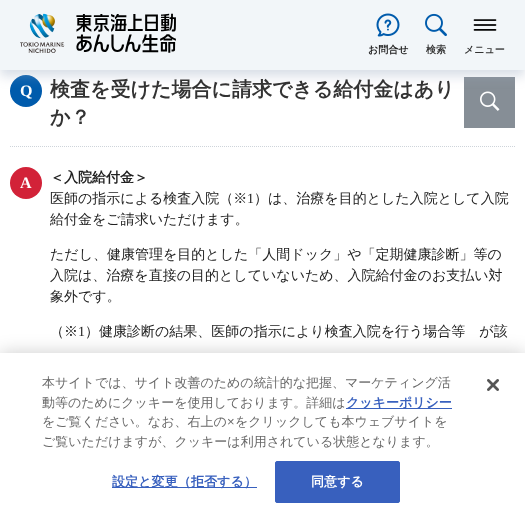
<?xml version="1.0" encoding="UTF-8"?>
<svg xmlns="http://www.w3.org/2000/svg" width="525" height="519">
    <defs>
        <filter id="blur1" x="-50%" y="-200%" width="200%" height="500%"><feGaussianBlur stdDeviation="6"/></filter>
        <filter id="blur2" x="-50%" y="-200%" width="200%" height="500%"><feGaussianBlur stdDeviation="9"/></filter>
    </defs>
    <rect width="100%" height="100%" fill="#FFFFFF"/>
    <rect x="464" y="77" width="51" height="51" fill="#868E96"/>
    <image x="480" y="91" width="20" height="20" href="img_05.png"/>
    <circle cx="26" cy="91" r="16" fill="#005BAC"/>
    <rect x="0" y="6" width="525" height="70" fill="#9BABC0" fill-opacity="0.4" filter="url(#blur1)"/>
    <rect x="0" y="0" width="525" height="70" fill="#F2F6F9"/>
    <image x="20" y="13" width="156" height="40" href="img_01.png"/>
    <image x="376" y="13" width="24" height="24" href="img_02.png"/>
    <text x="368" y="53" font-family="WenQuanYi Zen Hei" font-size="10" font-weight="700" fill="#222222">お問合せ</text>
    <image x="425" y="13" width="22" height="24" href="img_03.png"/>
    <text x="426" y="53" font-family="WenQuanYi Zen Hei" font-size="10" font-weight="700" fill="#333333">検索</text>
    <image x="473" y="19" width="24" height="12" href="img_04.png"/>
    <text x="464" y="53" font-family="WenQuanYi Zen Hei" font-size="10" font-weight="700" fill="#333333">メニュー</text>
    <path d="M 10 146.5 H 515" fill="none" stroke="#CED4DA" stroke-dasharray="1 1"/>
    <text x="20" y="96" font-family="Liberation Serif" font-size="16" font-weight="700" fill="#FFFFFF">Q</text>
    <text font-family="WenQuanYi Zen Hei" font-size="20" font-weight="700" fill="#333333">
        <tspan x="50" y="96">検査を受けた場合に請求できる給付金はあり</tspan>
        <tspan x="50" y="124">か？</tspan>
    </text>
    <circle cx="26" cy="183" r="16" fill="#D22238"/>
    <text x="20" y="188" font-family="Liberation Serif" font-size="16" font-weight="700" fill="#FFFFFF">A</text>
    <text x="50" y="182" font-family="WenQuanYi Zen Hei" font-size="14" font-weight="700" fill="#222222">＜入院給付金＞</text>
    <text x="50" y="203" font-family="WenQuanYi Zen Hei" font-size="14" font-weight="500" fill="#222222">医師の指示による検査入院（※</text>
    <text x="247" y="203" font-family="Liberation Serif" font-size="14" fill="#222222">1</text>
    <text x="254" y="203" font-family="WenQuanYi Zen Hei" font-size="14" font-weight="500" fill="#222222">）は、治療を目的とした入院として入院</text>
    <text x="50" y="224" font-family="WenQuanYi Zen Hei" font-size="14" font-weight="500" fill="#222222">給付金をご請求いただけます。</text>
    <text font-family="WenQuanYi Zen Hei" font-size="14" font-weight="500" fill="#222222">
        <tspan x="50" y="259">ただし、健康管理を目的とした「人間ドック」や「定期健康診断」等の</tspan>
        <tspan x="50" y="280">入院は、治療を直接の目的としていないため、入院給付金のお支払い対</tspan>
        <tspan x="50" y="301">象外です。</tspan>
    </text>
    <text x="50" y="336" font-family="WenQuanYi Zen Hei" font-size="14" font-weight="500" fill="#222222">（※</text>
    <text x="78" y="336" font-family="Liberation Serif" font-size="14" fill="#222222">1</text>
    <text x="85" y="336" font-family="WenQuanYi Zen Hei" font-size="14" font-weight="500" fill="#222222">）健康診断の結果、医師の指示により検査入院を行う場合等　が該</text>
    <rect x="0" y="353" width="525" height="166" fill="#000000" fill-opacity="0.2" filter="url(#blur2)"/>
    <rect x="0" y="353" width="525" height="166" fill="#FFFFFF"/>
    <text font-family="WenQuanYi Zen Hei" font-size="13" font-weight="500" fill="#696969">
        <tspan x="42" y="387">本サイトでは、サイト改善のための統計的な把握、マーケティング活</tspan>
        <tspan x="42" y="407">動等のためにクッキーを使用しております。詳細は</tspan>
    </text>
    <rect x="346" y="408" width="106" height="1" fill="#3860BE"/>
    <text x="346" y="407" font-family="WenQuanYi Zen Hei" font-size="13" font-weight="700" fill="#3860BE">クッキーポリシー</text>
    <text x="42" y="426" font-family="WenQuanYi Zen Hei" font-size="13" font-weight="500" fill="#696969">をご覧ください。なお、右上の</text>
    <text x="227" y="426" font-family="Liberation Sans" font-size="13" fill="#696969">×</text>
    <text x="235" y="426" font-family="WenQuanYi Zen Hei" font-size="13" font-weight="500" fill="#696969">をクリックしても本ウェブサイトを</text>
    <text x="42" y="446" font-family="WenQuanYi Zen Hei" font-size="13" font-weight="500" fill="#696969">ご覧いただけますが、クッキーは利用されている状態となります。</text>
    <rect x="112" y="487" width="145" height="1" fill="#3860BE"/>
    <text x="112" y="486" font-family="WenQuanYi Zen Hei" font-size="13" font-weight="700" letter-spacing="0.1" fill="#3860BE">設定と変更（拒否する）</text>
    <rect x="275.5" y="461.5" width="124" height="41" rx="1.5" fill="#3860BE" stroke="#3860BE"/>
    <text x="311" y="486" font-family="WenQuanYi Zen Hei" font-size="13" font-weight="700" letter-spacing="0.1" fill="#FFFFFF">同意する</text>
    <image x="487" y="379" width="12" height="12" href="img_06.png"/>
</svg>
